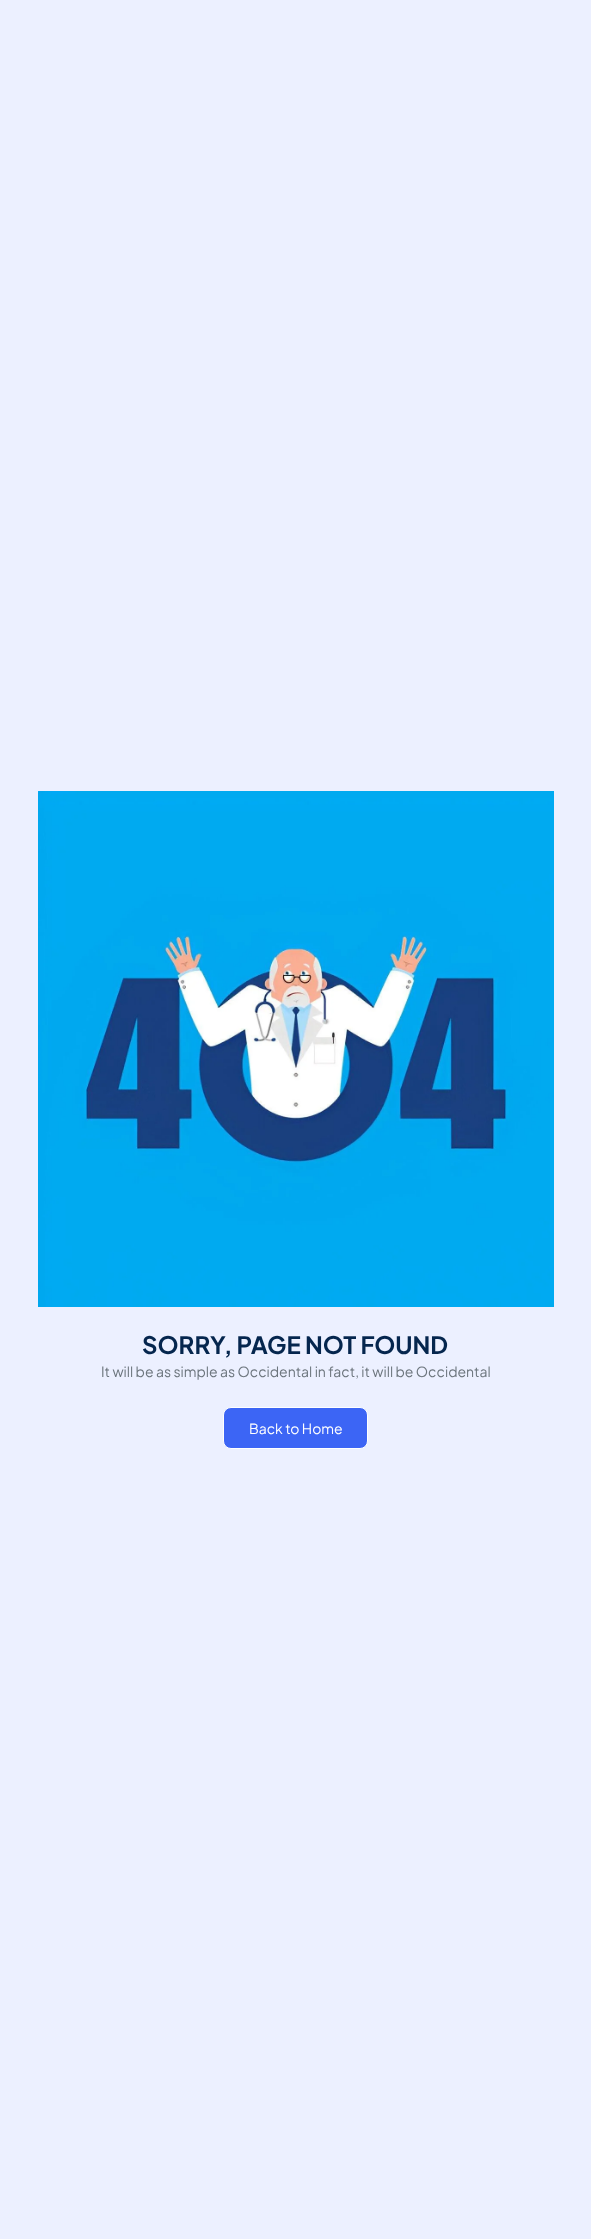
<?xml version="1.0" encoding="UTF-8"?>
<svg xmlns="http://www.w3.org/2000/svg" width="591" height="2239">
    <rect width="100%" height="100%" fill="#ECF0FF"/>
    <image x="38" y="791" width="516" height="516" href="img_01.png"/>
    <text x="142" y="1354" font-family="Plus Jakarta Sans" font-size="24" font-weight="700" fill="#05264E">SORRY, PAGE NOT FOUND</text>
    <text x="101" y="1377" font-family="Plus Jakarta Sans" font-size="14" fill="#6C757D">It will be as simple as Occidental in fact, it will be Occidental</text>
    <rect x="223.5" y="1407.5" width="144" height="41" rx="7.5" fill="#3C65F5" stroke="#FFFFFF"/>
    <text x="249" y="1434" font-family="Plus Jakarta Sans" font-size="14" fill="#FFFFFF">Back to Home</text>
</svg>
